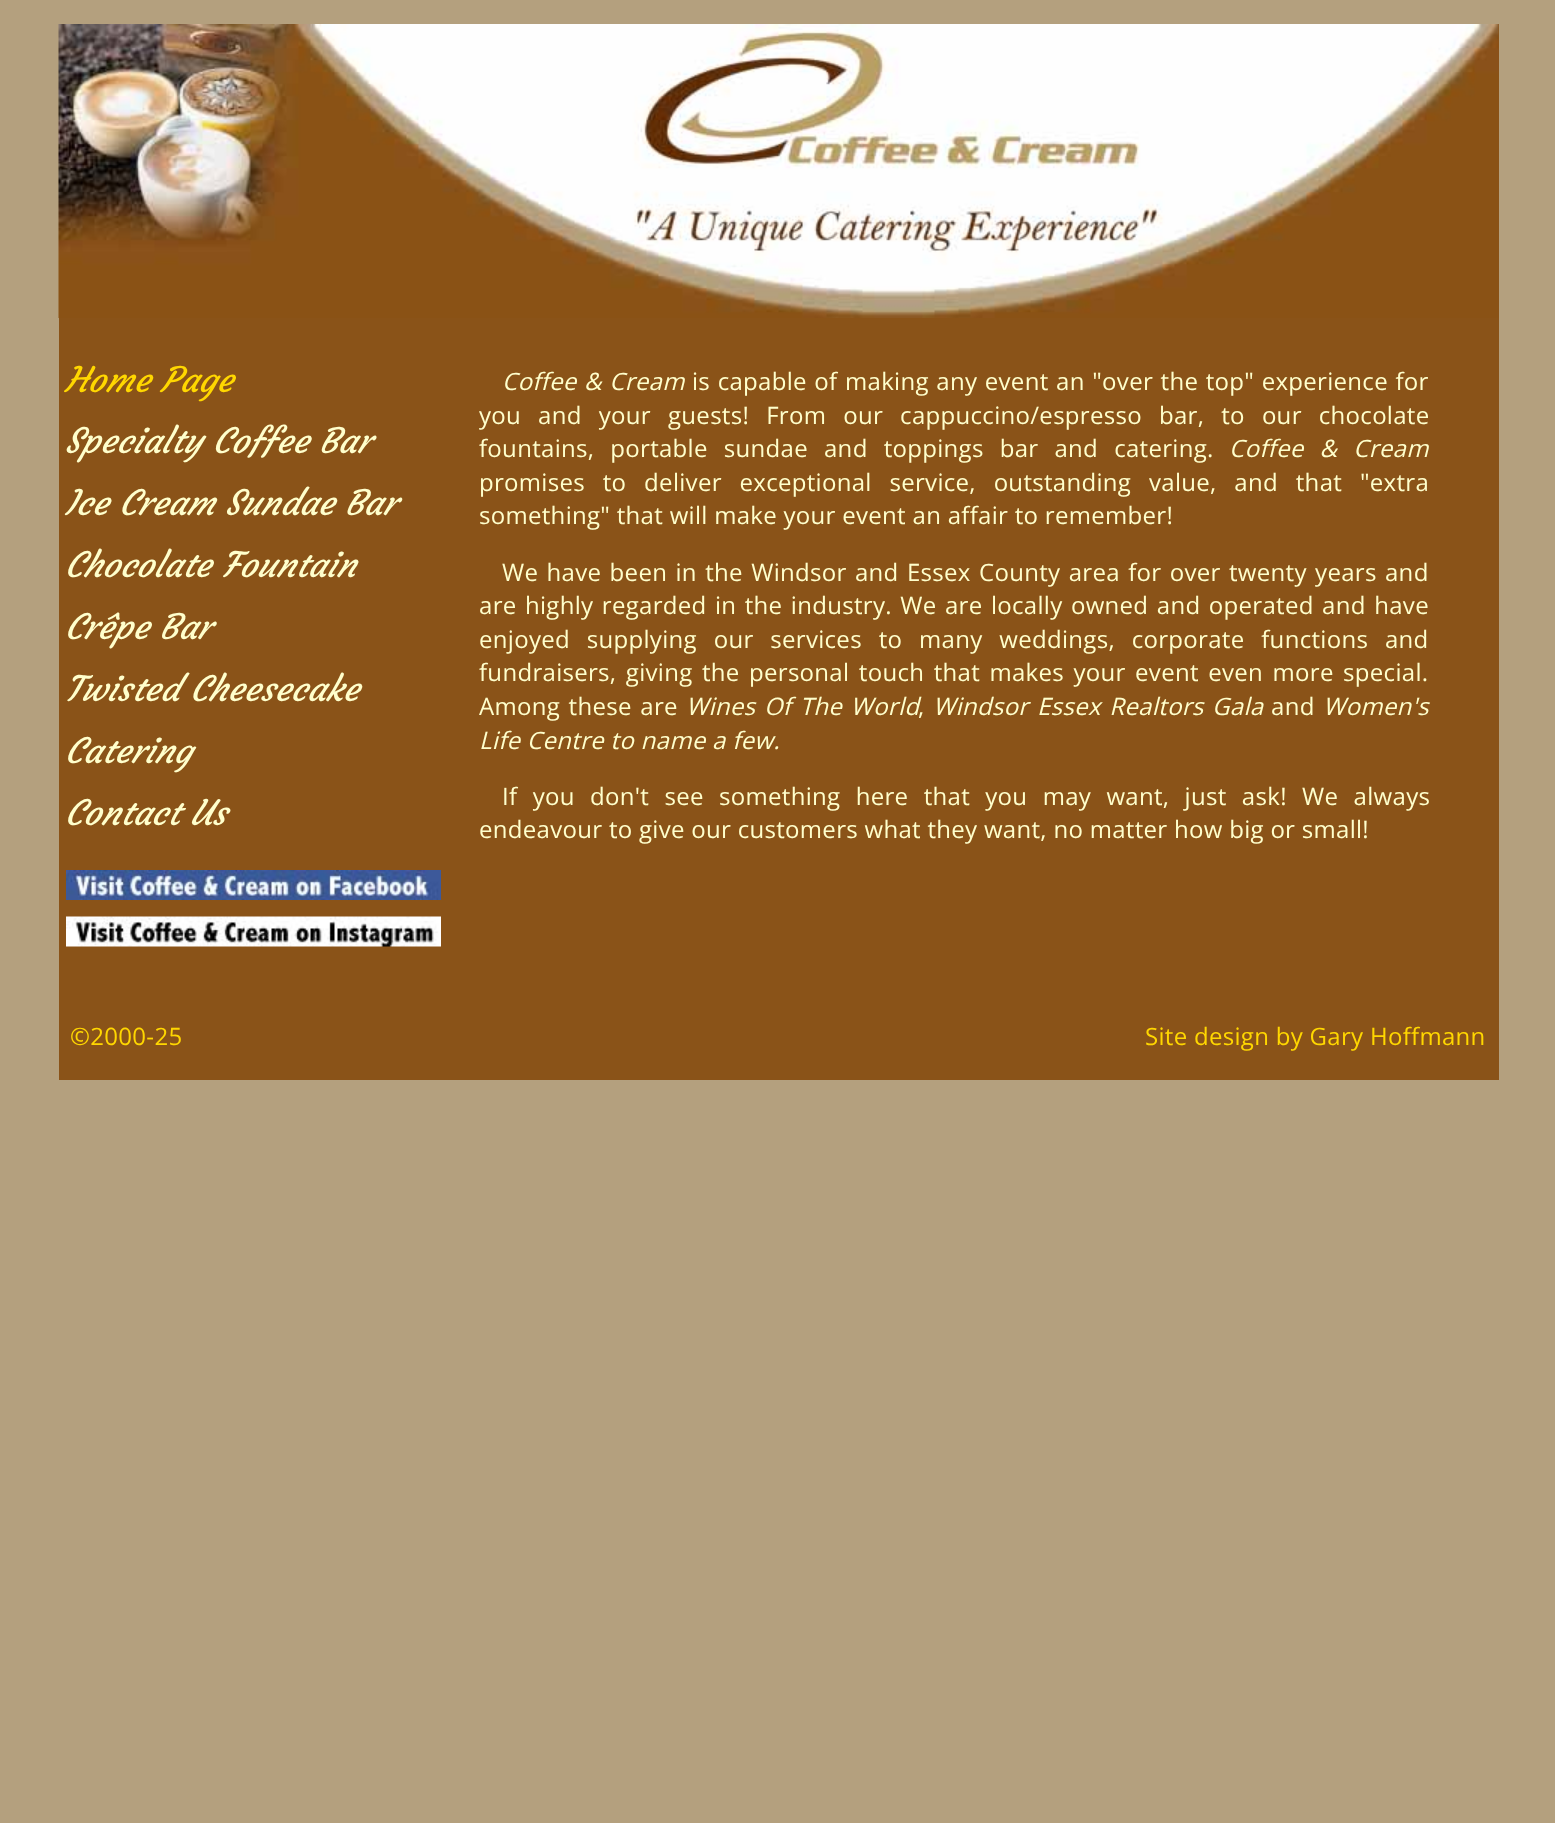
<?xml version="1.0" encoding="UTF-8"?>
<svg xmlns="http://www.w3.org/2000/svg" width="1555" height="1823">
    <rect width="100%" height="100%" fill="#B4A07E"/>
    <rect x="59" y="24" width="1440" height="1056" fill="#8A5318"/>
    <image x="58" y="24" width="1441" height="294" href="img_01.png"/>
    <text x="65" y="392" font-family="Courgette" font-size="34.5" font-style="italic" fill="#FFD700">Home Page</text>
    <text font-family="Courgette" font-size="34.5" font-style="italic" fill="#FFFFCC">
        <tspan x="65" y="453">Specialty Coffee Bar</tspan>
        <tspan x="65" y="515">Ice Cream Sundae Bar</tspan>
        <tspan x="65" y="577">Chocolate Fountain</tspan>
        <tspan x="65" y="639">Crêpe Bar</tspan>
        <tspan x="65" y="701">Twisted Cheesecake</tspan>
        <tspan x="65" y="763">Catering</tspan>
        <tspan x="65" y="825">Contact Us</tspan>
    </text>
    <image x="66" y="870" width="375" height="30" href="img_02.png"/>
    <image x="66" y="916" width="375" height="31" href="img_03.png"/>
    <text x="502" y="390" word-spacing="1" font-family="Open Sans" font-size="24" font-style="italic" letter-spacing="0.3" fill="#FFFFCC">Coffee &amp; Cream</text>
    <text x="692" y="390" word-spacing="1" font-family="Open Sans" font-size="24" letter-spacing="0.3" fill="#FFFFCC">is capable of making any event an "over the top" experience for</text>
    <text font-family="Open Sans" font-size="24" letter-spacing="0.3" fill="#FFFFCC">
        <tspan x="479" y="424" word-spacing="10.5">you and your guests! From our cappuccino/espresso bar, to our chocolate</tspan>
        <tspan x="479" y="457" word-spacing="9.5">fountains, portable sundae and toppings bar and catering.</tspan>
    </text>
    <text x="1229" y="457" word-spacing="9.5" font-family="Open Sans" font-size="24" font-style="italic" letter-spacing="0.3" fill="#FFFFCC">Coffee &amp; Cream</text>
    <text font-family="Open Sans" font-size="24" letter-spacing="0.3" fill="#FFFFCC">
        <tspan x="479" y="491" word-spacing="11.25">promises to deliver exceptional service, outstanding value, and that "extra</tspan>
        <tspan x="479" y="524">something" that will make your event an affair to remember!</tspan>
    </text>
    <text x="502" y="581" word-spacing="1.8" font-family="Open Sans" font-size="24" letter-spacing="0.3" fill="#FFFFCC">We have been in the Windsor and Essex County area for over twenty years and</text>
    <text font-family="Open Sans" font-size="24" letter-spacing="0.3" fill="#FFFFCC">
        <tspan x="479" y="614" word-spacing="1.9">are highly regarded in the industry. We are locally owned and operated and have</tspan>
        <tspan x="479" y="648" word-spacing="10.25">enjoyed supplying our services to many weddings, corporate functions and</tspan>
        <tspan x="479" y="681" word-spacing="2.9">fundraisers, giving the personal touch that makes your event even more special.</tspan>
        <tspan x="479" y="715" word-spacing="2">Among these are</tspan>
    </text>
    <text x="686" y="715" word-spacing="2" font-family="Open Sans" font-size="24" font-style="italic" letter-spacing="0.3" fill="#FFFFCC">Wines Of The World</text>
    <text x="933" y="715" word-spacing="2" font-family="Open Sans" font-size="24" font-style="italic" letter-spacing="0.3" fill="#FFFFCC">Windsor Essex Realtors Gala</text>
    <text x="1271" y="715" font-family="Open Sans" font-size="24" letter-spacing="0.3" fill="#FFFFCC">and</text>
    <text x="1323" y="715" font-family="Open Sans" font-size="24" font-style="italic" letter-spacing="0.3" fill="#FFFFCC">Women's</text>
    <text x="918" y="715" font-family="Open Sans" font-size="24" letter-spacing="0.3" fill="#FFFFCC">,</text>
    <text x="479" y="749" font-family="Open Sans" font-size="24" font-style="italic" letter-spacing="0.3" fill="#FFFFCC">Life Centre to name a few.</text>
    <text x="502" y="805" word-spacing="8.75" font-family="Open Sans" font-size="24" letter-spacing="0.3" fill="#FFFFCC">If you don't see something here that you may want, just ask! We always</text>
    <text x="479" y="838" font-family="Open Sans" font-size="24" letter-spacing="0.3" fill="#FFFFCC">endeavour to give our customers what they want, no matter how big or small!</text>
    <text x="70" y="1045" font-family="Open Sans" font-size="24" letter-spacing="0.3" fill="#FFD700">©2000-25</text>
    <text x="1145" y="1045" font-family="Open Sans" font-size="24" letter-spacing="0.3" fill="#FFD700">Site design by Gary Hoffmann</text>
</svg>
